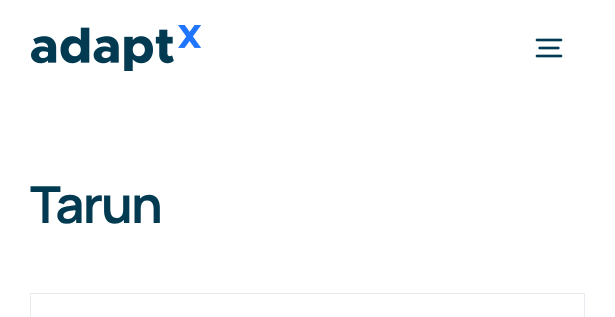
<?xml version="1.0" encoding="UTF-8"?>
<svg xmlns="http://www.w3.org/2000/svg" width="615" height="317">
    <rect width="100%" height="100%" fill="#FFFFFF"/>
    <image x="31" y="25" width="170" height="46" href="img_01.png"/>
    <image x="535" y="38" width="28" height="20" href="img_02.png"/>
    <text x="30" y="223" font-family="Manrope" font-size="51" font-weight="700" letter-spacing="-2" fill="#023A51">Tarun</text>
    <rect x="30.5" y="293.5" width="554" height="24" fill="none" stroke="#E8EBEF"/>
</svg>
